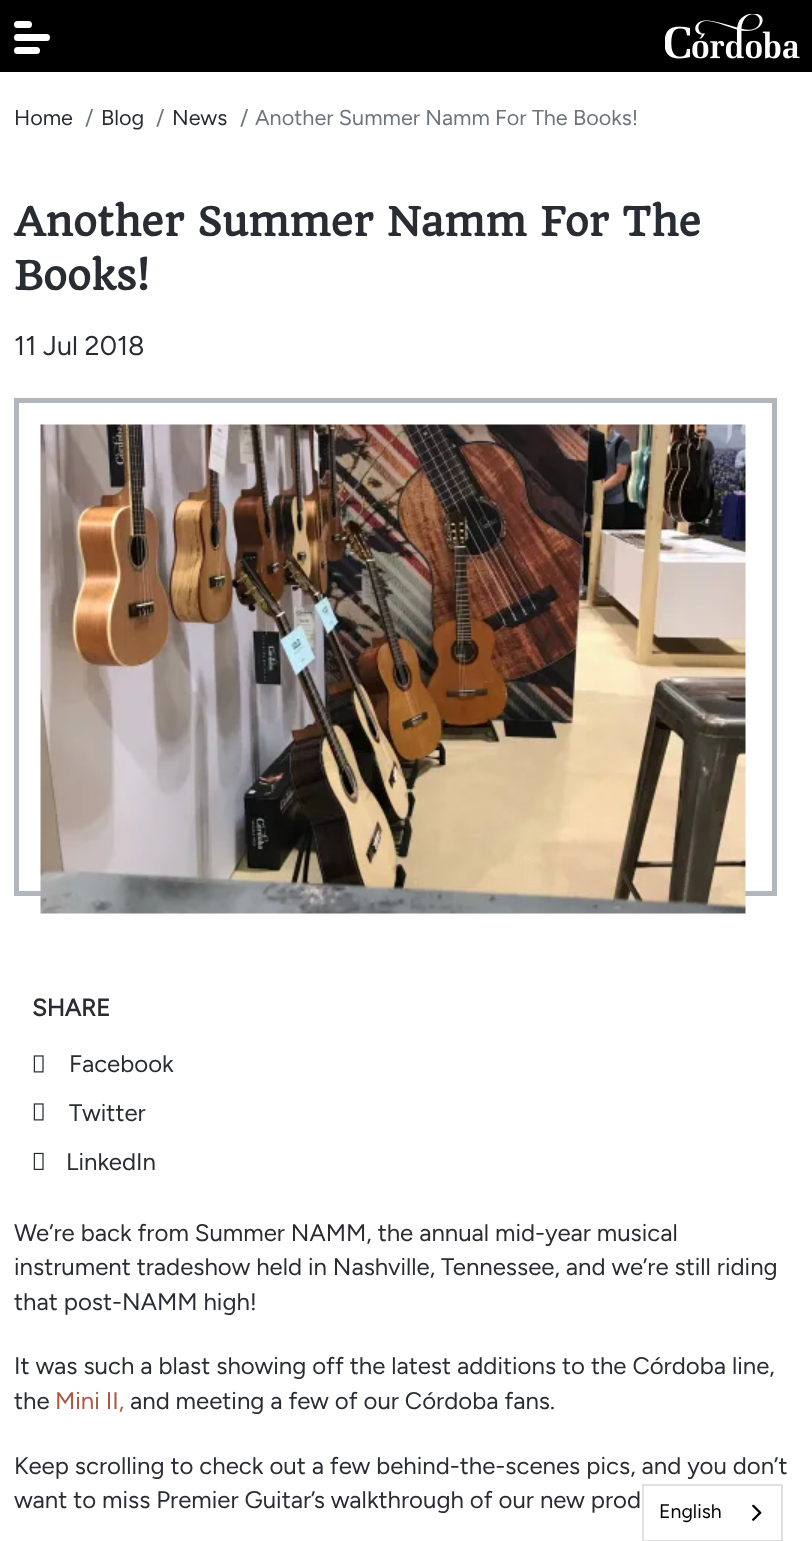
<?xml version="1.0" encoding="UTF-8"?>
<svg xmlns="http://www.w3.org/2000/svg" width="812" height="1541">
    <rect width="100%" height="100%" fill="#FFFFFF"/>
    <rect x="0" y="0" width="812" height="72" fill="#000000"/>
    <rect x="14" y="21" width="18" height="7" rx="3.5" fill="#FFFFFF"/>
    <rect x="14" y="34" width="36" height="7" rx="3.5" fill="#FFFFFF"/>
    <rect x="14" y="47" width="26" height="7" rx="3.5" fill="#FFFFFF"/>
    <image x="665" y="14" width="135" height="45" href="img_01.png"/>
    <text x="14" y="125" font-family="Figtree" font-size="21.6" font-weight="300" fill="#292D33">Home</text>
    <text x="85" y="125" font-family="Figtree" font-size="21.6" font-weight="300" fill="#6C757D">/</text>
    <text x="101" y="125" font-family="Figtree" font-size="21.6" font-weight="300" fill="#292D33">Blog</text>
    <text x="156" y="125" font-family="Figtree" font-size="21.6" font-weight="300" fill="#6C757D">/</text>
    <text x="172" y="125" font-family="Figtree" font-size="21.6" font-weight="300" fill="#292D33">News</text>
    <text x="240" y="125" font-family="Figtree" font-size="21.6" font-weight="300" fill="#6C757D">/</text>
    <text x="255" y="125" font-family="Figtree" font-size="21.6" font-weight="300" fill="#6C757D">Another Summer Namm For The Books!</text>
    <text font-family="Quando" font-size="38.6" font-weight="700" fill="#292D33">
        <tspan x="14" y="236">Another Summer Namm For The</tspan>
        <tspan x="14" y="290">Books!</tspan>
    </text>
    <text x="14" y="355" font-family="Figtree" font-size="27" font-weight="300" fill="#292D33">11 Jul 2018</text>
    <rect x="16.5" y="400.5" width="758" height="493" fill="none" stroke="#B2B6BD" stroke-width="5"/>
    <image x="40" y="424" width="706" height="490" href="img_02.png"/>
    <text x="32" y="1016" font-family="Figtree" font-size="24" font-weight="700" fill="#292D33">SHARE</text>
    <image x="33" y="1055" width="11" height="18" href="img_03.png"/>
    <text x="69" y="1072" font-family="Figtree" font-size="24" font-weight="300" fill="#292D33">Facebook</text>
    <image x="33" y="1103" width="11" height="18" href="img_03.png"/>
    <text x="69" y="1121" font-family="Figtree" font-size="24" font-weight="300" fill="#292D33">Twitter</text>
    <image x="33" y="1152" width="11" height="18" href="img_04.png"/>
    <text x="66" y="1170" font-family="Figtree" font-size="24" font-weight="300" fill="#292D33">LinkedIn</text>
    <text font-family="Figtree" font-size="24" font-weight="300" fill="#292D33">
        <tspan x="14" y="1241">We’re back from Summer NAMM, the annual mid-year musical</tspan>
        <tspan x="14" y="1275">instrument tradeshow held in Nashville, Tennessee, and we’re still riding</tspan>
        <tspan x="14" y="1310">that post-NAMM high!</tspan>
    </text>
    <text font-family="Figtree" font-size="24" font-weight="300" fill="#292D33">
        <tspan x="14" y="1374">It was such a blast showing off the latest additions to the Córdoba line,</tspan>
        <tspan x="14" y="1409">the</tspan>
    </text>
    <text x="55" y="1409" font-family="Figtree" font-size="24" font-weight="300" fill="#AE573D">Mini II,</text>
    <text x="130" y="1409" font-family="Figtree" font-size="24" font-weight="300" fill="#292D33">and meeting a few of our Córdoba fans.</text>
    <text font-family="Figtree" font-size="24" font-weight="300" fill="#292D33">
        <tspan x="14" y="1474">Keep scrolling to check out a few behind-the-scenes pics, and you don’t</tspan>
        <tspan x="14" y="1508">want to miss Premier Guitar’s walkthrough of our new prod</tspan>
    </text>
    <rect x="643" y="1485" width="139" height="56" fill="none" stroke="#E0E0E0" stroke-width="2"/>
    <text x="659" y="1518" font-family="Figtree" font-size="19.5" font-weight="300" fill="#000000">English</text>
    <image x="752" y="1504" width="10" height="17" href="img_05.png"/>
</svg>
